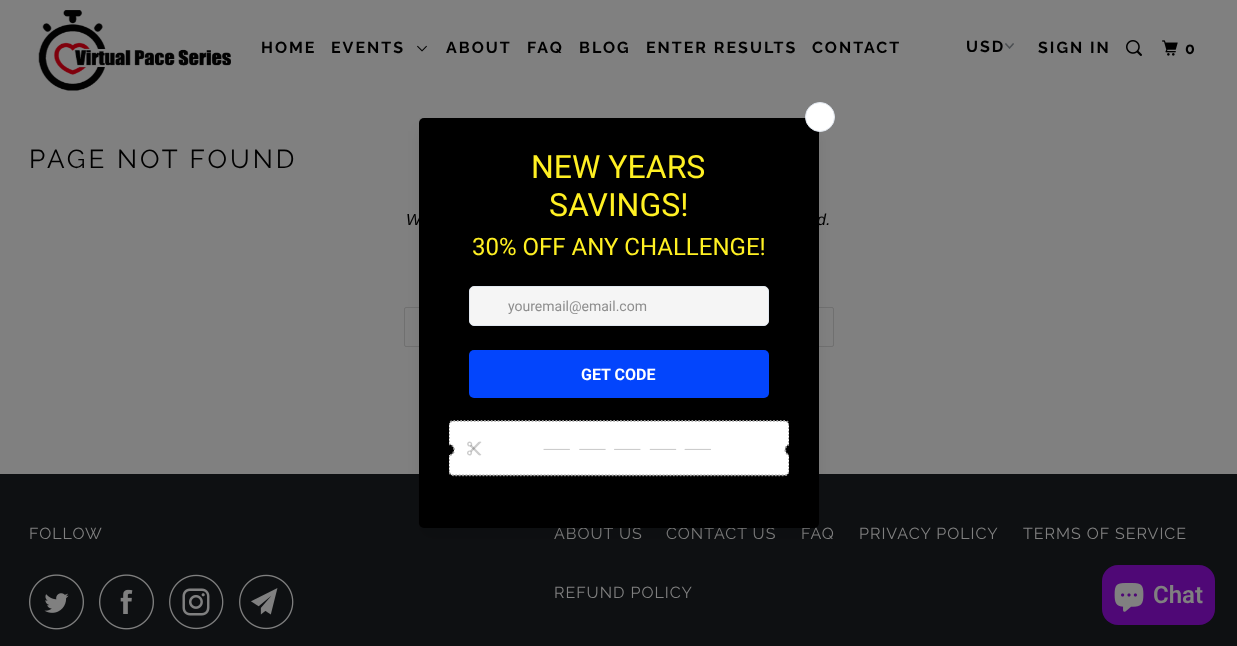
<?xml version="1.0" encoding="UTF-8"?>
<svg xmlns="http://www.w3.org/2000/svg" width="1237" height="646">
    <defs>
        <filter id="blur1" x="-50%" y="-200%" width="200%" height="500%"><feGaussianBlur stdDeviation="7.5"/></filter>
        <clipPath id="clip1"><rect x="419" y="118" width="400" height="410"/></clipPath>
        <filter id="blur2" x="-50%" y="-200%" width="200%" height="500%"><feGaussianBlur stdDeviation="10"/></filter>
    </defs>
    <rect width="100%" height="100%" fill="#808080"/>
    <image x="38" y="10" width="193" height="81" href="img_01.png"/>
    <text x="261" y="53" font-family="Raleway" font-size="16" font-weight="700" letter-spacing="2" fill="#000000">HOME</text>
    <text x="331" y="53" font-family="Raleway" font-size="16" font-weight="700" letter-spacing="2" fill="#000000">EVENTS</text>
    <image x="417" y="45" width="10" height="7" href="img_02.png"/>
    <text x="446" y="53" font-family="Raleway" font-size="16" font-weight="700" letter-spacing="2" fill="#000000">ABOUT</text>
    <text x="527" y="53" font-family="Raleway" font-size="16" font-weight="700" letter-spacing="2" fill="#000000">FAQ</text>
    <text x="579" y="53" font-family="Raleway" font-size="16" font-weight="700" letter-spacing="2" fill="#000000">BLOG</text>
    <text x="646" y="53" font-family="Raleway" font-size="16" font-weight="700" letter-spacing="2" fill="#000000">ENTER RESULTS</text>
    <text x="812" y="53" font-family="Raleway" font-size="16" font-weight="700" letter-spacing="2" fill="#000000">CONTACT</text>
    <image x="1005" y="43" width="9" height="6" href="img_03.png"/>
    <text x="966" y="52" font-family="Raleway" font-size="16" font-weight="700" letter-spacing="2" fill="#000000">USD</text>
    <text x="1038" y="53" font-family="Raleway" font-size="16" font-weight="700" letter-spacing="2" fill="#000000">SIGN IN</text>
    <image x="1126" y="40" width="16" height="16" href="img_04.png"/>
    <image x="1162" y="40" width="16" height="16" href="img_05.png"/>
    <text x="1185" y="54" font-family="Raleway" font-size="16" font-weight="700" letter-spacing="2" fill="#000000">0</text>
    <text x="29" y="168" font-family="Raleway" font-size="26" letter-spacing="3" fill="#000000">PAGE NOT FOUND</text>
    <text x="406" y="225" font-family="Liberation Sans" font-size="16" font-style="italic" fill="#000000">W</text>
    <text x="817" y="225" font-family="Liberation Sans" font-size="16" font-style="italic" fill="#000000">d.</text>
    <rect x="404.5" y="307.5" width="429" height="39" rx="1.5" fill="none" stroke="#707070"/>
    <rect x="0" y="474" width="1237" height="172" fill="#0E1012"/>
    <text x="29" y="539" font-family="Raleway" font-size="16" letter-spacing="1" fill="#808080">FOLLOW</text>
    <image x="29" y="574" width="55" height="56" href="img_06.png"/>
    <image x="99" y="574" width="55" height="56" href="img_07.png"/>
    <image x="169" y="574" width="55" height="56" href="img_08.png"/>
    <image x="239" y="574" width="55" height="56" href="img_09.png"/>
    <text x="554" y="539" font-family="Raleway" font-size="16" letter-spacing="1" fill="#808080">ABOUT US</text>
    <text x="666" y="539" font-family="Raleway" font-size="16" letter-spacing="1" fill="#808080">CONTACT US</text>
    <text x="801" y="539" font-family="Raleway" font-size="16" letter-spacing="1" fill="#808080">FAQ</text>
    <text x="859" y="539" font-family="Raleway" font-size="16" letter-spacing="1" fill="#808080">PRIVACY POLICY</text>
    <text x="1023" y="539" font-family="Raleway" font-size="16" letter-spacing="1" fill="#808080">TERMS OF SERVICE</text>
    <text x="554" y="598" font-family="Raleway" font-size="16" letter-spacing="1" fill="#808080">REFUND POLICY</text>
    <rect x="422" y="131" width="394" height="404" rx="2" fill="#000000" fill-opacity="0.1" filter="url(#blur1)"/>
    <g clip-path="url(#clip1)">
        <rect x="422" y="121" width="394" height="404" rx="2" fill="#000000" fill-opacity="0.12" filter="url(#blur2)"/>
    </g>
    <rect x="419" y="118" width="400" height="410" rx="5" fill="#000000"/>
    <circle cx="820" cy="117" r="14.5" fill="#FFFFFF" stroke="#E2E8F0"/>
    <text x="531" y="178" font-family="Roboto" font-size="32" fill="#FFF023">NEW YEARS</text>
    <text x="549" y="216" font-family="Roboto" font-size="32" fill="#FFF023">SAVINGS!</text>
    <text x="472" y="255" font-family="Roboto" font-size="24" fill="#FFF023">30% OFF ANY CHALLENGE!</text>
    <rect x="469.5" y="286.5" width="299" height="39" rx="4.5" fill="#F5F5F5" stroke="#E2E8F0"/>
    <text x="508" y="311" font-family="Roboto" font-size="14" fill="#8E8E8E">youremail@email.com</text>
    <rect x="469" y="350" width="300" height="48" rx="5" fill="#0345FC"/>
    <text x="581" y="380" font-family="Roboto" font-size="16" font-weight="700" fill="#FFFFFF">GET CODE</text>
    <image x="449" y="420" width="340" height="57" href="img_10.png"/>
    <rect x="1102" y="565" width="113" height="60" rx="16" fill="#4F0876"/>
    <image x="1114" y="583" width="30" height="29" href="img_11.png"/>
    <text x="1153" y="603" font-family="Roboto" font-size="24" font-weight="600" fill="#808080">Chat</text>
</svg>
